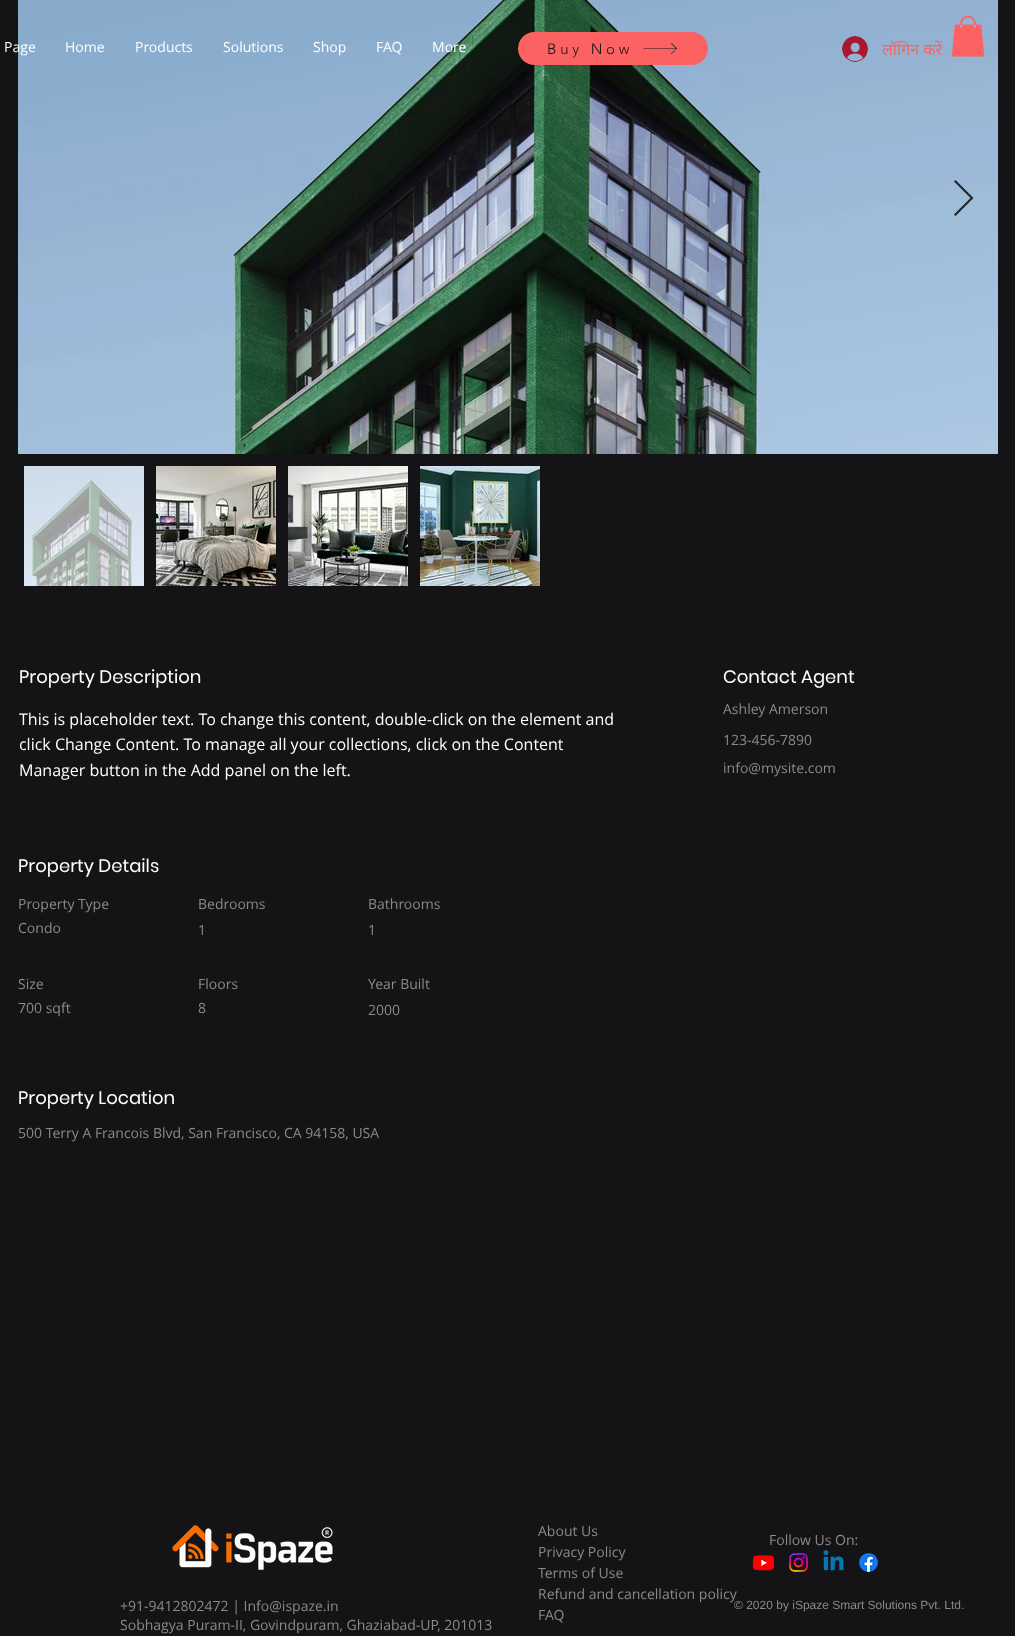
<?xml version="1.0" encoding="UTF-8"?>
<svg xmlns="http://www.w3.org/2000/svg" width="1015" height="1636">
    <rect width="100%" height="100%" fill="#141416"/>
    <image x="18" y="0" width="980" height="454" href="img_03.png"/>
    <text x="4" y="52" font-family="Open Sans" font-size="14" fill="#FFFFFF">Page</text>
    <text x="65" y="52" font-family="Open Sans" font-size="14" fill="#FFFFFF">Home</text>
    <text x="135" y="52" font-family="Open Sans" font-size="14" fill="#FFFFFF">Products</text>
    <text x="223" y="52" font-family="Open Sans" font-size="14" fill="#FFFFFF">Solutions</text>
    <text x="313" y="52" font-family="Open Sans" font-size="14" fill="#FFFFFF">Shop</text>
    <text x="376" y="52" font-family="Open Sans" font-size="14" fill="#FFFFFF">FAQ</text>
    <text x="432" y="52" font-family="Open Sans" font-size="14" fill="#FFFFFF">More</text>
    <rect x="518" y="32" width="190" height="33" rx="16.5" fill="#FD6262"/>
    <text x="547" y="54" font-family="'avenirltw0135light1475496'" font-size="15" font-weight="300" letter-spacing="3.75" fill="#141416">Buy Now</text>
    <path d="M 671.5 43 L 671 43.5 L 676 48.5 H 643.5 V 49 H 676 L 671 53.5 L 671.5 54 L 677 48.5 Z" fill="#141416"/>
    <image x="842" y="36" width="26" height="26" href="img_01.png"/>
    <text x="882" y="55" font-family="Noto Sans" font-size="16" fill="#FD6262">लॉगिन करें</text>
    <image x="951" y="16" width="34" height="41" href="img_02.png"/>
    <path d="M 954 181.5 L 955.5 180 L 973.5 198 L 955.5 216 L 954 214.5 L 970.5 198 Z" fill="#222529"/>
    <image x="24" y="466" width="120" height="120" href="img_04.png"/>
    <image x="156" y="466" width="120" height="120" href="img_05.png"/>
    <image x="288" y="466" width="120" height="120" href="img_06.png"/>
    <image x="420" y="466" width="120" height="120" href="img_07.png"/>
    <text x="19" y="683" font-family="Poppins" font-size="18" fill="#FFFFFF">Property Description</text>
    <text x="723" y="683" font-family="Poppins" font-size="18" fill="#FFFFFF">Contact Agent</text>
    <text x="723" y="714" font-family="Open Sans" font-size="14" fill="#8A8A8A">Ashley Amerson</text>
    <text font-family="Open Sans" font-size="16" fill="#FFFFFF">
        <tspan x="19" y="725">This is placeholder text. To change this content, double-click on the element and</tspan>
        <tspan x="19" y="750">click Change Content. To manage all your collections, click on the Content</tspan>
        <tspan x="19" y="776">Manager button in the Add panel on the left.</tspan>
    </text>
    <text x="723" y="745" font-family="Open Sans" font-size="14" fill="#8A8A8A">123-456-7890</text>
    <text x="723" y="773" font-family="Open Sans" font-size="14" fill="#8A8A8A">info@mysite.com</text>
    <text x="18" y="872" font-family="Poppins" font-size="18" fill="#FFFFFF">Property Details</text>
    <text x="18" y="909" font-family="Open Sans" font-size="14" fill="#8A8A8A">Property Type</text>
    <text x="198" y="909" font-family="Open Sans" font-size="14" fill="#8A8A8A">Bedrooms</text>
    <text x="368" y="909" font-family="Open Sans" font-size="14" fill="#8A8A8A">Bathrooms</text>
    <text x="18" y="933" font-family="Open Sans" font-size="14" fill="#8A8A8A">Condo</text>
    <text x="198" y="935" font-family="Open Sans" font-size="14" fill="#8A8A8A">1</text>
    <text x="368" y="935" font-family="Open Sans" font-size="14" fill="#8A8A8A">1</text>
    <text x="18" y="989" font-family="Open Sans" font-size="14" fill="#8A8A8A">Size</text>
    <text x="198" y="989" font-family="Open Sans" font-size="14" fill="#8A8A8A">Floors</text>
    <text x="368" y="989" font-family="Open Sans" font-size="14" fill="#8A8A8A">Year Built</text>
    <text x="18" y="1013" font-family="Open Sans" font-size="14" fill="#8A8A8A">700 sqft</text>
    <text x="198" y="1013" font-family="Open Sans" font-size="14" fill="#8A8A8A">8</text>
    <text x="368" y="1015" font-family="Open Sans" font-size="14" fill="#8A8A8A">2000</text>
    <text x="18" y="1104" font-family="Poppins" font-size="18" fill="#FFFFFF">Property Location</text>
    <text x="18" y="1138" font-family="Open Sans" font-size="14" fill="#8A8A8A">500 Terry A Francois Blvd, San Francisco, CA 94158, USA</text>
    <text font-family="Open Sans" font-size="14" fill="#8A8A8A">
        <tspan x="538" y="1536">About Us</tspan>
        <tspan x="538" y="1557">Privacy Policy</tspan>
        <tspan x="538" y="1578">Terms of Use</tspan>
        <tspan x="538" y="1599">Refund and cancellation policy</tspan>
        <tspan x="538" y="1620">FAQ</tspan>
    </text>
    <text x="769" y="1545" font-family="Open Sans" font-size="14" fill="#8A8A8A">Follow Us On:</text>
    <image x="752" y="1555" width="23" height="16" href="img_08.png"/>
    <image x="789" y="1553" width="19" height="19" href="img_09.png"/>
    <image x="823" y="1550" width="21" height="21" href="img_10.png"/>
    <image x="859" y="1553" width="19" height="19" href="img_11.png"/>
    <text x="734" y="1609" font-family="Liberation Sans" font-size="12" fill="#8A8A8A">© 2020 by iSpaze Smart Solutions Pvt. Ltd.</text>
    <image x="172" y="1525" width="161" height="45" href="img_12.png"/>
    <text font-family="Open Sans" font-size="14" fill="#8A8A8A">
        <tspan x="120" y="1611">+91-9412802472 | Info@ispaze.in</tspan>
        <tspan x="120" y="1630">Sobhagya Puram-II, Govindpuram, Ghaziabad-UP, 201013</tspan>
    </text>
</svg>
